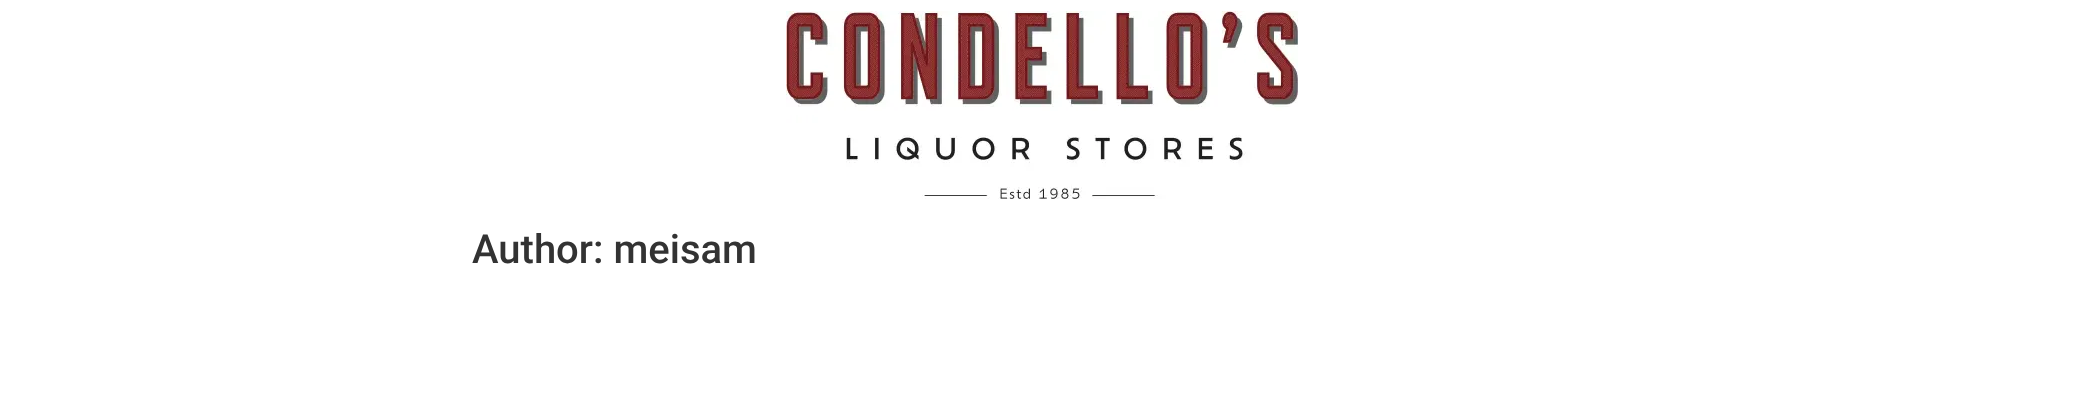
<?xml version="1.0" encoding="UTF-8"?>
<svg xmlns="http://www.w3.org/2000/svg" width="2084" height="393">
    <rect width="100%" height="100%" fill="#FFFFFF"/>
    <image x="786" y="11" width="512" height="188" href="img_01.png"/>
    <text x="472" y="263" font-family="Roboto" font-size="40" font-weight="500" fill="#333333">Author: meisam</text>
</svg>
